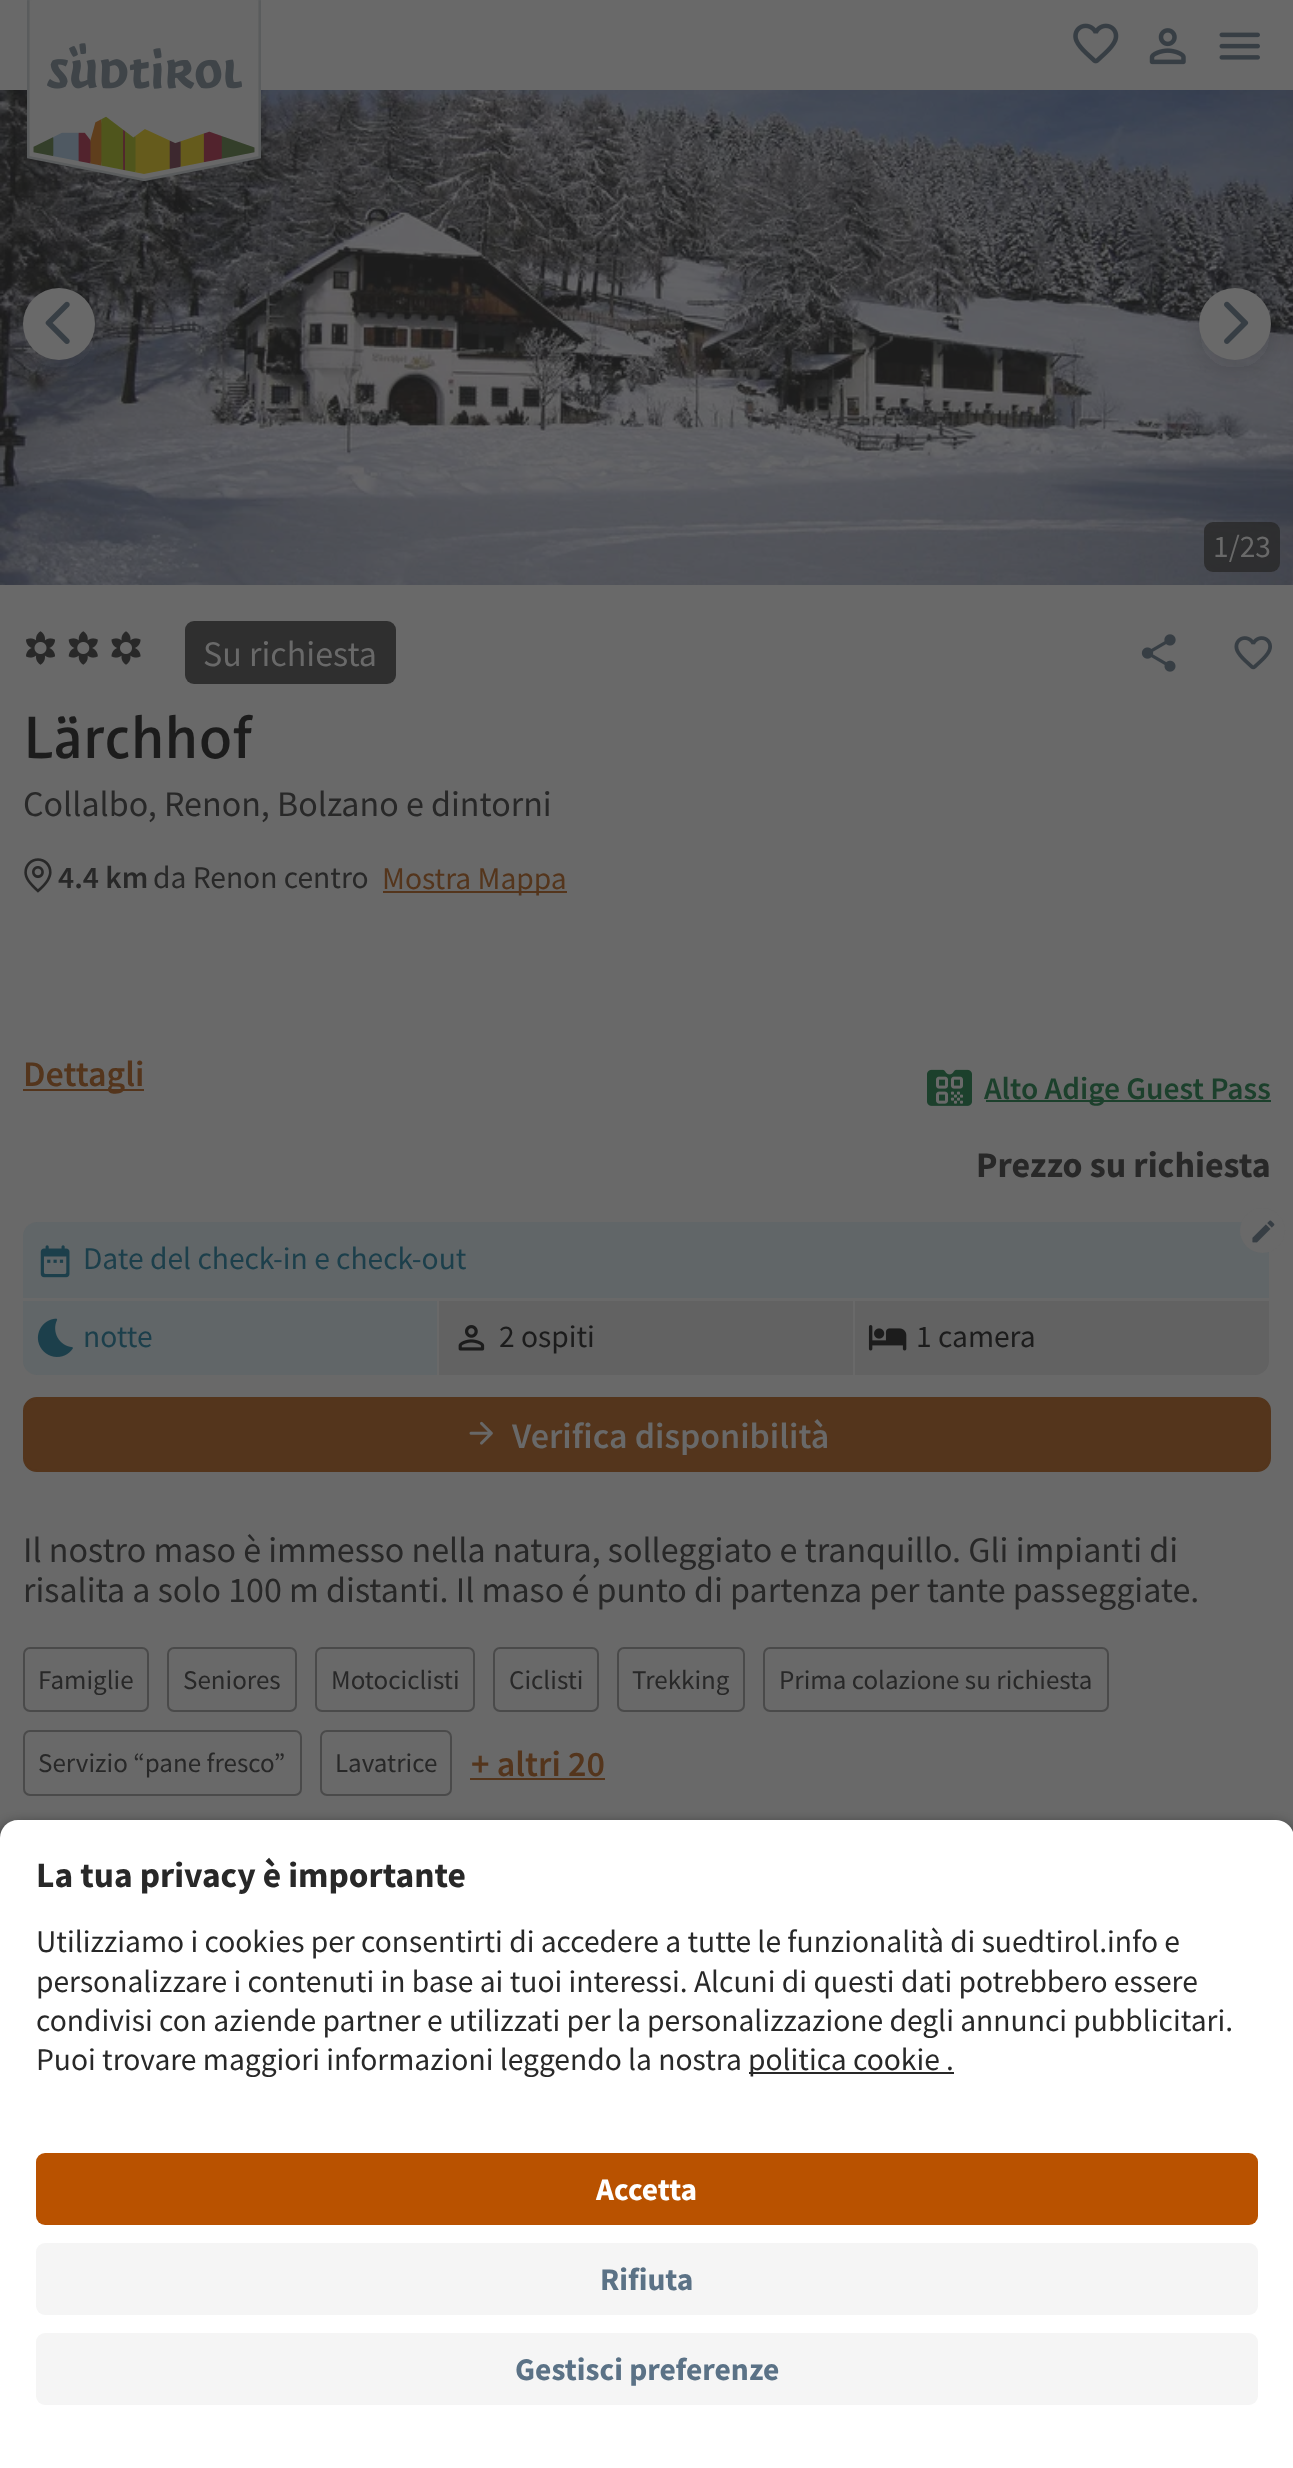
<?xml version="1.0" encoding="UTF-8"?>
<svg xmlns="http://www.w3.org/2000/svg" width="1293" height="2468">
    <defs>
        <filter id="blur1" x="-50%" y="-200%" width="200%" height="500%"><feGaussianBlur stdDeviation="13.5"/></filter>
        <filter id="blur2" x="-50%" y="-200%" width="200%" height="500%"><feGaussianBlur stdDeviation="8"/></filter>
    </defs>
    <rect width="100%" height="100%" fill="#696969"/>
    <image x="0" y="90" width="1293" height="495" href="img_05.png"/>
    <image x="27" y="0" width="234" height="181" href="img_01.png"/>
    <image x="1073" y="23" width="46" height="41" href="img_02.png"/>
    <image x="1149" y="28" width="37" height="37" href="img_03.png"/>
    <image x="1219" y="32" width="41" height="28" href="img_04.png"/>
    <rect x="23" y="297" width="72" height="72" rx="36" fill="#1C1C1C" fill-opacity="0.16" filter="url(#blur1)"/>
    <circle cx="59" cy="324" r="36" fill="#696969"/>
    <image x="45" y="301" width="25" height="43" href="img_06.png"/>
    <rect x="1199" y="297" width="72" height="72" rx="36" fill="#1C1C1C" fill-opacity="0.16" filter="url(#blur1)"/>
    <circle cx="1235" cy="324" r="36" fill="#696969"/>
    <image x="1224" y="301" width="25" height="43" href="img_07.png"/>
    <rect x="1204" y="522" width="76" height="50" rx="9" fill="#282828" fill-opacity="0.8"/>
    <text x="1213" y="557" font-family="Source Sans Pro" font-size="31.5" fill="#696969">1/23</text>
    <image x="26" y="631" width="29" height="34" href="img_08.png"/>
    <image x="68" y="631" width="30" height="34" href="img_09.png"/>
    <image x="111" y="631" width="30" height="34" href="img_10.png"/>
    <rect x="185" y="621" width="211" height="63" rx="9" fill="#2F2F2F"/>
    <text x="203" y="666" font-family="Source Sans Pro" font-size="36" fill="#696969">Su richiesta</text>
    <image x="1141" y="634" width="35" height="38" href="img_11.png"/>
    <image x="1234" y="636" width="38" height="34" href="img_12.png"/>
    <text x="23" y="758" font-family="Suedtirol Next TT" font-size="63" fill="#1C1C1C">Lärchhof</text>
    <text x="23" y="816" font-family="Source Sans Pro" font-size="36" fill="#282828">Collalbo, Renon, Bolzano e dintorni</text>
    <image x="24" y="858" width="28" height="35" href="img_13.png"/>
    <text x="58" y="888" font-family="Source Sans Pro" font-size="31.5" font-weight="600" fill="#282828">4.4 km</text>
    <text x="153" y="888" font-family="Source Sans Pro" font-size="31.5" fill="#282828">da Renon centro</text>
    <rect x="383" y="891" width="184" height="2" fill="#54351C"/>
    <text x="382" y="889" font-family="Source Sans Pro" font-size="31.5" fill="#54351C">Mostra Mappa</text>
    <rect x="23" y="1089" width="121" height="2" fill="#54351C"/>
    <text x="23" y="1086" font-family="Source Sans Pro" font-size="36" font-weight="600" fill="#54351C">Dettagli</text>
    <image x="927" y="1069" width="45" height="37" href="img_14.png"/>
    <rect x="986" y="1100" width="285" height="2" fill="#1C402C"/>
    <text x="984" y="1099" font-family="Source Sans Pro" font-size="31.5" font-weight="600" fill="#1C402C">Alto Adige Guest Pass</text>
    <text x="976" y="1177" font-family="Source Sans Pro" font-size="36" font-weight="700" fill="#282828">Prezzo su richiesta</text>
    <path d="M 37 1222 H 1255 C 1262.5 1222 1269 1228.5 1269 1236 V 1298 H 23 V 1236 C 23 1228.5 29.5 1222 37 1222 Z" fill="#616668"/>
    <circle cx="1262.5" cy="1230.5" r="22.5" fill="#696969"/>
    <image x="1252" y="1220" width="23" height="23" href="img_15.png"/>
    <image x="40" y="1245" width="30" height="33" href="img_16.png"/>
    <text x="83" y="1269" font-family="Source Sans Pro" font-size="31.5" fill="#1C3F4B">Date del check-in e check-out</text>
    <path d="M 23 1301 H 437 V 1375 H 37 C 29.5 1375 23 1368.5 23 1361 Z" fill="#616668"/>
    <image x="37" y="1318" width="36" height="39" href="img_17.png"/>
    <text x="83" y="1347" font-family="Source Sans Pro" font-size="31.5" fill="#1C3F4B">notte</text>
    <rect x="439" y="1301" width="414" height="74" fill="#626262"/>
    <image x="458" y="1325" width="27" height="26" href="img_18.png"/>
    <text x="499" y="1347" font-family="Source Sans Pro" font-size="31.5" fill="#1C1C1C">2 ospiti</text>
    <path d="M 855 1301 H 1269 V 1361 C 1269 1368.5 1262.5 1375 1255 1375 H 855 Z" fill="#626262"/>
    <image x="868" y="1325" width="39" height="26" href="img_19.png"/>
    <text x="916" y="1347" font-family="Source Sans Pro" font-size="31.5" fill="#1C1C1C">1 camera</text>
    <rect x="24" y="1398" width="1246" height="73" rx="13" fill="#54351C" stroke="#54351C" stroke-width="2"/>
    <image x="469" y="1421" width="24" height="24" href="img_20.png"/>
    <text x="512" y="1448" font-family="Source Sans Pro" font-size="36" font-weight="600" fill="#696969">Verifica disponibilità</text>
    <text font-family="Source Sans Pro" font-size="36" fill="#282828">
        <tspan x="23" y="1562">Il nostro maso è immesso nella natura, solleggiato e tranquillo. Gli impianti di</tspan>
        <tspan x="23" y="1602">risalita a solo 100 m distanti. Il maso é punto di partenza per tante passeggiate.</tspan>
    </text>
    <rect x="24" y="1648" width="124" height="63" rx="6" fill="none" stroke="#4A4A4A" stroke-width="2"/>
    <text x="38" y="1689" font-family="Source Sans Pro" font-size="27" fill="#282828">Famiglie</text>
    <rect x="168" y="1648" width="128" height="63" rx="6" fill="none" stroke="#4A4A4A" stroke-width="2"/>
    <text x="183" y="1689" font-family="Source Sans Pro" font-size="27" fill="#282828">Seniores</text>
    <rect x="316" y="1648" width="158" height="63" rx="6" fill="none" stroke="#4A4A4A" stroke-width="2"/>
    <text x="331" y="1689" font-family="Source Sans Pro" font-size="27" fill="#282828">Motociclisti</text>
    <rect x="494" y="1648" width="104" height="63" rx="6" fill="none" stroke="#4A4A4A" stroke-width="2"/>
    <text x="509" y="1689" font-family="Source Sans Pro" font-size="27" fill="#282828">Ciclisti</text>
    <rect x="618" y="1648" width="126" height="63" rx="6" fill="none" stroke="#4A4A4A" stroke-width="2"/>
    <text x="632" y="1689" font-family="Source Sans Pro" font-size="27" fill="#282828">Trekking</text>
    <rect x="764" y="1648" width="344" height="63" rx="6" fill="none" stroke="#4A4A4A" stroke-width="2"/>
    <text x="779" y="1689" font-family="Source Sans Pro" font-size="27" fill="#282828">Prima colazione su richiesta</text>
    <rect x="24" y="1731" width="277" height="64" rx="6" fill="none" stroke="#4A4A4A" stroke-width="2"/>
    <text x="38" y="1772" font-family="Source Sans Pro" font-size="27" fill="#282828">Servizio “pane fresco”</text>
    <rect x="321" y="1731" width="130" height="64" rx="6" fill="none" stroke="#4A4A4A" stroke-width="2"/>
    <text x="335" y="1772" font-family="Source Sans Pro" font-size="27" fill="#282828">Lavatrice</text>
    <text x="471" y="1776" font-family="Source Sans Pro" font-size="36" font-weight="600" fill="#54351C">+ altri 20</text>
    <rect x="470" y="1778" width="135" height="2" fill="#54351C"/>
    <rect x="0" y="1827" width="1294" height="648" rx="18" fill="#000000" fill-opacity="0.8" filter="url(#blur2)"/>
    <path d="M 18 1820 H 1276 C 1286 1820 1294 1828 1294 1838 V 2126 H 0 V 1838 C 0 1828 8 1820 18 1820 Z" fill="#FFFFFF"/>
    <text x="36" y="1887" font-family="Source Sans Pro" font-size="35.5" font-weight="700" fill="#282828">La tua privacy è importante</text>
    <text font-family="Source Sans Pro" font-size="31.5" fill="#282828">
        <tspan x="36" y="1952">Utilizziamo i cookies per consentirti di accedere a tutte le funzionalità di suedtirol.info e</tspan>
        <tspan x="36" y="1992">personalizzare i contenuti in base ai tuoi interessi. Alcuni di questi dati potrebbero essere</tspan>
        <tspan x="36" y="2031">condivisi con aziende partner e utilizzati per la personalizzazione degli annunci pubblicitari.</tspan>
        <tspan x="36" y="2070">Puoi trovare maggiori informazioni leggendo la nostra</tspan>
    </text>
    <rect x="749" y="2072" width="205" height="2" fill="#282828"/>
    <text x="748" y="2070" font-family="Source Sans Pro" font-size="31.5" fill="#282828">politica cookie .</text>
    <rect x="0" y="2126" width="1293" height="342" fill="#FFFFFF"/>
    <rect x="36" y="2153" width="1222" height="72" rx="9" fill="#B95200"/>
    <text x="596" y="2200" font-family="Source Sans Pro" font-size="31.5" font-weight="700" fill="#FFFFFF">Accetta</text>
    <rect x="36" y="2243" width="1222" height="72" rx="9" fill="#F5F5F5"/>
    <text x="600" y="2290" font-family="Source Sans Pro" font-size="31.5" font-weight="700" fill="#5B7286">Rifiuta</text>
    <rect x="36" y="2333" width="1222" height="72" rx="9" fill="#F5F5F5"/>
    <text x="515" y="2380" font-family="Source Sans Pro" font-size="31.5" font-weight="700" fill="#5B7286">Gestisci preferenze</text>
</svg>
